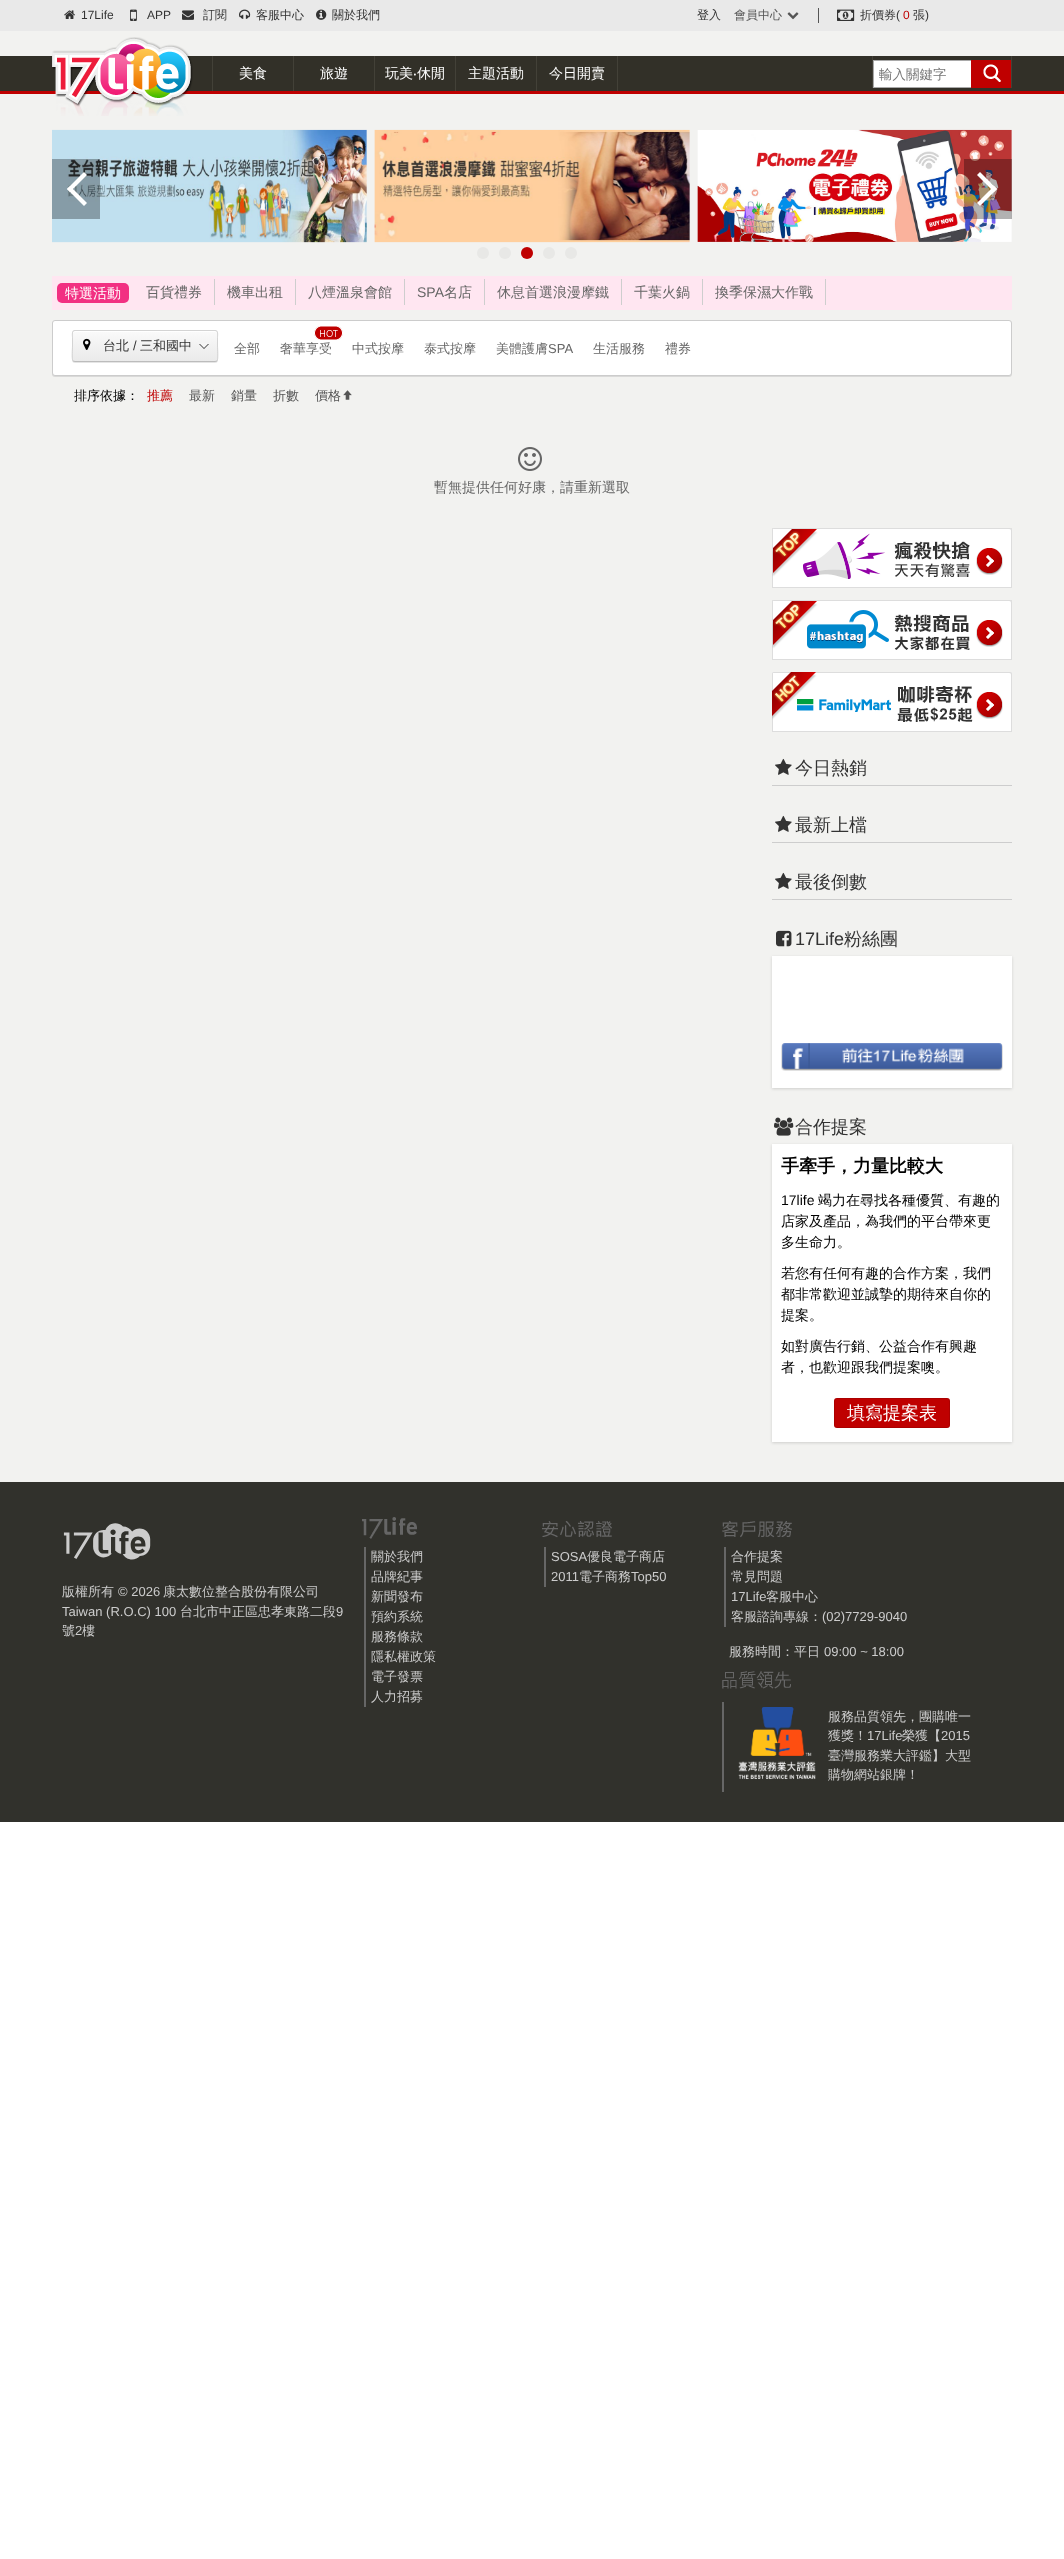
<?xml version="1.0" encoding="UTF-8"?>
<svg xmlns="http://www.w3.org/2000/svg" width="1064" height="2559">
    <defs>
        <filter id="blur1" x="-50%" y="-200%" width="200%" height="500%"><feGaussianBlur stdDeviation="0.5"/></filter>
        <linearGradient id="g1" gradientUnits="userSpaceOnUse" x1="145" y1="331" x2="145" y2="361"><stop offset="0" stop-color="#FAFAFA"/><stop offset="1" stop-color="#EAEAEA"/></linearGradient>
        <filter id="blur2" x="-50%" y="-200%" width="200%" height="500%"><feGaussianBlur stdDeviation="1.5"/></filter>
    </defs>
    <rect width="100%" height="100%" fill="#FFFFFF"/>
    <rect x="0" y="31" width="1064" height="1451" fill="#F2F2F0"/>
    <rect x="0" y="0" width="1064" height="31" fill="#E9E9E9"/>
    <image x="64" y="10" width="11" height="9" href="img_01.png"/>
    <text x="81" y="19" font-family="Liberation Sans" font-size="12" fill="#333333">17Life</text>
    <image x="130" y="9" width="7" height="12" href="img_02.png"/>
    <text x="147" y="19" font-family="Liberation Sans" font-size="12" fill="#333333">APP</text>
    <image x="182" y="10" width="12" height="10" href="img_03.png"/>
    <text x="203" y="19" font-family="WenQuanYi Zen Hei" font-size="12" font-weight="500" fill="#333333">訂閱</text>
    <image x="239" y="9" width="12" height="10" href="img_04.png"/>
    <text x="256" y="19" font-family="WenQuanYi Zen Hei" font-size="12" font-weight="500" fill="#333333">客服中心</text>
    <image x="316" y="9" width="11" height="11" href="img_05.png"/>
    <text x="332" y="19" font-family="WenQuanYi Zen Hei" font-size="12" font-weight="500" fill="#333333">關於我們</text>
    <text x="697" y="19" font-family="WenQuanYi Zen Hei" font-size="12" font-weight="500" fill="#333333">登入</text>
    <text x="734" y="19" font-family="WenQuanYi Zen Hei" font-size="12" font-weight="500" fill="#555555">會員中心</text>
    <image x="787" y="12" width="12" height="8" href="img_06.png"/>
    <rect x="818" y="8" width="1" height="15" fill="#555555"/>
    <image x="837" y="9" width="18" height="12" href="img_07.png"/>
    <text x="860" y="19" font-family="WenQuanYi Zen Hei" font-size="12" font-weight="500" fill="#333333">折價券</text>
    <text x="896" y="19" font-family="Liberation Sans" font-size="12" fill="#333333">(</text>
    <text x="903" y="19" font-family="Liberation Sans" font-size="12" fill="#BF0000">0</text>
    <text x="913" y="19" font-family="WenQuanYi Zen Hei" font-size="12" font-weight="500" fill="#333333">張</text>
    <text x="925" y="19" font-family="Liberation Sans" font-size="12" fill="#333333">)</text>
    <rect x="0" y="56" width="1064" height="35" fill="#323028"/>
    <rect x="0" y="91" width="1064" height="3" fill="#BF0000"/>
    <image x="52" y="37" width="141" height="79" href="img_08.png"/>
    <rect x="293" y="56" width="1" height="35" fill="#434138"/>
    <rect x="212" y="56" width="1" height="35" fill="#434138"/>
    <text x="239" y="78" font-family="WenQuanYi Zen Hei" font-size="14" font-weight="500" fill="#FFFFFF">美食</text>
    <rect x="374" y="56" width="1" height="35" fill="#434138"/>
    <text x="320" y="78" font-family="WenQuanYi Zen Hei" font-size="14" font-weight="500" fill="#FFFFFF">旅遊</text>
    <rect x="455" y="56" width="1" height="35" fill="#434138"/>
    <text x="385" y="78" font-family="WenQuanYi Zen Hei" font-size="14" font-weight="500" fill="#FFFFFF">玩美</text>
    <text x="413" y="78" font-family="Noto Sans" font-size="14" fill="#FFFFFF">‧</text>
    <text x="417" y="78" font-family="WenQuanYi Zen Hei" font-size="14" font-weight="500" fill="#FFFFFF">休閒</text>
    <rect x="536" y="56" width="1" height="35" fill="#434138"/>
    <text x="468" y="78" font-family="WenQuanYi Zen Hei" font-size="14" font-weight="500" fill="#FFFFFF">主題活動</text>
    <rect x="617" y="56" width="1" height="35" fill="#434138"/>
    <text x="549" y="78" font-family="WenQuanYi Zen Hei" font-size="14" font-weight="500" fill="#FFFFFF">今日開賣</text>
    <rect x="1011" y="56" width="1" height="32" fill="#434138"/>
    <rect x="872" y="56" width="1" height="32" fill="#434138"/>
    <rect x="873.5" y="60.5" width="98" height="27" fill="#FFFFFF" stroke="#A9A9A9"/>
    <text x="879" y="79" font-family="WenQuanYi Zen Hei" font-size="13.5" font-weight="500" fill="#757575">輸入關鍵字</text>
    <rect x="971" y="60" width="40" height="28" fill="#BF0000"/>
    <image x="983" y="64" width="18" height="18" href="img_09.png"/>
    <image x="52" y="129" width="315" height="114" href="img_10.png"/>
    <image x="374" y="129" width="316" height="114" href="img_11.png"/>
    <image x="697" y="129" width="315" height="113" href="img_12.png"/>
    <rect x="52" y="159" width="48" height="60" fill="#000000" fill-opacity="0.3"/>
    <path d="M 70 186 L 87 203 L 84 206 L 67 189 Z" fill="#FFFFFF"/>
    <path d="M 84 172 L 87 175 L 70 192 L 67 189 Z" fill="#FFFFFF"/>
    <rect x="964" y="159" width="48" height="60" fill="#000000" fill-opacity="0.3"/>
    <path d="M 994 192 L 977 175 L 980 172 L 997 189 Z" fill="#FFFFFF"/>
    <path d="M 980 206 L 977 203 L 994 186 L 997 189 Z" fill="#FFFFFF"/>
    <circle cx="483" cy="253" r="6" fill="#E8E8E6"/>
    <circle cx="505" cy="253" r="6" fill="#E8E8E6"/>
    <circle cx="527" cy="253" r="6" fill="#BF0000"/>
    <circle cx="549" cy="253" r="6" fill="#E8E8E6"/>
    <circle cx="571" cy="253" r="6" fill="#E8E8E6"/>
    <rect x="52" y="276" width="960" height="34" fill="#FFE6F1"/>
    <rect x="57" y="283" width="72" height="20" rx="5" fill="#F23082"/>
    <text x="65" y="298" font-family="WenQuanYi Zen Hei" font-size="14" font-weight="500" fill="#FFFFFF">特選活動</text>
    <rect x="214" y="279" width="1" height="26" fill="#CECECE"/>
    <text x="146" y="297" font-family="WenQuanYi Zen Hei" font-size="14" font-weight="500" fill="#666666">百貨禮券</text>
    <rect x="295" y="279" width="1" height="26" fill="#CECECE"/>
    <text x="227" y="297" font-family="WenQuanYi Zen Hei" font-size="14" font-weight="500" fill="#666666">機車出租</text>
    <rect x="404" y="279" width="1" height="26" fill="#CECECE"/>
    <text x="308" y="297" font-family="WenQuanYi Zen Hei" font-size="14" font-weight="500" fill="#666666">八煙溫泉會館</text>
    <rect x="484" y="279" width="1" height="26" fill="#CECECE"/>
    <text x="417" y="297" font-family="Liberation Sans" font-size="14" fill="#666666">SPA</text>
    <text x="444" y="297" font-family="WenQuanYi Zen Hei" font-size="14" font-weight="500" fill="#666666">名店</text>
    <rect x="621" y="279" width="1" height="26" fill="#CECECE"/>
    <text x="497" y="297" font-family="WenQuanYi Zen Hei" font-size="14" font-weight="500" fill="#666666">休息首選浪漫摩鐵</text>
    <rect x="702" y="279" width="1" height="26" fill="#CECECE"/>
    <text x="634" y="297" font-family="WenQuanYi Zen Hei" font-size="14" font-weight="500" fill="#666666">千葉火鍋</text>
    <rect x="825" y="279" width="1" height="26" fill="#CECECE"/>
    <text x="715" y="297" font-family="WenQuanYi Zen Hei" font-size="14" font-weight="500" fill="#666666">換季保濕大作戰</text>
    <rect x="52" y="321" width="960" height="56" rx="3" fill="#000000" fill-opacity="0.1" filter="url(#blur1)"/>
    <rect x="52.5" y="320.5" width="959" height="55" rx="2.5" fill="#FFFFFF" stroke="#CCCCCC"/>
    <rect x="72" y="331" width="146" height="32" rx="3" fill="#000000" fill-opacity="0.1" filter="url(#blur1)"/>
    <rect x="72" y="330" width="146" height="32" rx="3" fill="#E6E6E6"/>
    <rect x="73" y="331" width="144" height="30" fill="url(#g1)"/>
    <path d="M 75 332 H 215 C 216 332 217 333 217 334 C 217 333 217 332 216 331 H 75 L 73 332 V 334 C 73 333 74 332 75 332 Z" fill="#FFFFFF"/>
    <path d="M 217 361 L 215 361.5 H 75 L 73 361" fill="none" stroke="#BCBCBC"/>
    <path d="M 73 361 C 71.5 359 72.5 348.5 72.5 346 V 337.5 C 72.5 335.5 71.5 330.5 75 330.5 H 215 C 218.5 330.5 217.5 335.5 217.5 337.5 V 346 C 217.5 348.5 218.5 359 217 361" fill="none" stroke="#D4D4D4"/>
    <image x="83" y="338" width="8" height="12" href="img_13.png"/>
    <text x="103" y="350" font-family="WenQuanYi Zen Hei" font-size="13" font-weight="500" fill="#333333">台北</text>
    <text x="133" y="350" font-family="Liberation Sans" font-size="13" fill="#333333">/</text>
    <text x="140" y="350" font-family="WenQuanYi Zen Hei" font-size="13" font-weight="500" fill="#333333">三和國中</text>
    <path d="M 199 344 H 209 L 204 349 Z" fill="#333333"/>
    <path d="M 199 343 H 209 L 204 348 Z" fill="#F6F6F6"/>
    <text x="234" y="353" font-family="WenQuanYi Zen Hei" font-size="13" font-weight="500" fill="#666666">全部</text>
    <image x="314" y="326" width="29" height="14" href="img_14.png"/>
    <text x="280" y="353" font-family="WenQuanYi Zen Hei" font-size="13" font-weight="500" fill="#666666">奢華享受</text>
    <text x="352" y="353" font-family="WenQuanYi Zen Hei" font-size="13" font-weight="500" fill="#666666">中式按摩</text>
    <text x="424" y="353" font-family="WenQuanYi Zen Hei" font-size="13" font-weight="500" fill="#666666">泰式按摩</text>
    <text x="496" y="353" font-family="WenQuanYi Zen Hei" font-size="13" font-weight="500" fill="#666666">美體護膚</text>
    <text x="548" y="353" font-family="Liberation Sans" font-size="13" fill="#666666">SPA</text>
    <text x="593" y="353" font-family="WenQuanYi Zen Hei" font-size="13" font-weight="500" fill="#666666">生活服務</text>
    <text x="665" y="353" font-family="WenQuanYi Zen Hei" font-size="13" font-weight="500" fill="#666666">禮券</text>
    <text x="74" y="400" font-family="WenQuanYi Zen Hei" font-size="13" font-weight="500" fill="#000000">排序依據：</text>
    <text x="147" y="400" font-family="WenQuanYi Zen Hei" font-size="13" font-weight="500" fill="#BF0000">推薦</text>
    <text x="189" y="400" font-family="WenQuanYi Zen Hei" font-size="13" font-weight="500" fill="#555555">最新</text>
    <text x="231" y="400" font-family="WenQuanYi Zen Hei" font-size="13" font-weight="500" fill="#555555">銷量</text>
    <text x="273" y="400" font-family="WenQuanYi Zen Hei" font-size="13" font-weight="500" fill="#555555">折數</text>
    <text x="315" y="400" font-family="WenQuanYi Zen Hei" font-size="13" font-weight="500" fill="#555555">價格</text>
    <image x="343" y="390" width="9" height="10" href="img_15.png"/>
    <image x="518" y="447" width="24" height="24" href="img_16.png"/>
    <text x="434" y="492" font-family="WenQuanYi Zen Hei" font-size="14" font-weight="500" fill="#666666">暫無提供任何好康，請重新選取</text>
    <image x="772" y="528" width="240" height="60" href="img_17.png"/>
    <image x="772" y="600" width="240" height="60" href="img_18.png"/>
    <image x="772" y="672" width="240" height="60" href="img_19.png"/>
    <image x="775" y="758" width="17" height="17" href="img_20.png"/>
    <text x="795" y="774" font-family="WenQuanYi Zen Hei" font-size="18" font-weight="500" fill="#333333">今日熱銷</text>
    <rect x="772" y="785" width="240" height="1" fill="#CDCDCD"/>
    <image x="775" y="815" width="17" height="17" href="img_20.png"/>
    <text x="795" y="831" font-family="WenQuanYi Zen Hei" font-size="18" font-weight="500" fill="#333333">最新上檔</text>
    <rect x="772" y="842" width="240" height="1" fill="#CDCDCD"/>
    <image x="775" y="872" width="17" height="17" href="img_20.png"/>
    <text x="795" y="888" font-family="WenQuanYi Zen Hei" font-size="18" font-weight="500" fill="#333333">最後倒數</text>
    <rect x="772" y="899" width="240" height="1" fill="#CDCDCD"/>
    <image x="776" y="930" width="16" height="17" href="img_21.png"/>
    <text x="795" y="945" font-family="Liberation Sans" font-size="18" fill="#333333">17Life</text>
    <text x="844" y="945" font-family="WenQuanYi Zen Hei" font-size="18" font-weight="500" fill="#333333">粉絲團</text>
    <rect x="772" y="957" width="240" height="132" fill="#000000" fill-opacity="0.15" filter="url(#blur2)"/>
    <rect x="772" y="956" width="240" height="132" fill="#FFFFFF"/>
    <image x="781" y="1043" width="222" height="28" href="img_22.png"/>
    <image x="774" y="1117" width="20" height="19" href="img_23.png"/>
    <text x="795" y="1133" font-family="WenQuanYi Zen Hei" font-size="18" font-weight="500" fill="#333333">合作提案</text>
    <rect x="772" y="1145" width="240" height="298" fill="#000000" fill-opacity="0.15" filter="url(#blur2)"/>
    <rect x="772" y="1144" width="240" height="298" fill="#FFFFFF"/>
    <text x="781" y="1172" font-family="WenQuanYi Zen Hei" font-size="18" font-weight="700" fill="#000000">手牽手，力量比較大</text>
    <text x="781" y="1205" font-family="Liberation Sans" font-size="14" fill="#000000">17life</text>
    <text x="818" y="1205" font-family="WenQuanYi Zen Hei" font-size="14" font-weight="500" fill="#000000">竭力在尋找各種優質、有趣的</text>
    <text font-family="WenQuanYi Zen Hei" font-size="14" font-weight="500" fill="#000000">
        <tspan x="781" y="1226">店家及產品，為我們的平台帶來更</tspan>
        <tspan x="781" y="1247">多生命力。</tspan>
    </text>
    <text font-family="WenQuanYi Zen Hei" font-size="14" font-weight="500" fill="#000000">
        <tspan x="781" y="1278">若您有任何有趣的合作方案，我們</tspan>
        <tspan x="781" y="1299">都非常歡迎並誠摯的期待來自你的</tspan>
        <tspan x="781" y="1320">提案。</tspan>
    </text>
    <text font-family="WenQuanYi Zen Hei" font-size="14" font-weight="500" fill="#000000">
        <tspan x="781" y="1351">如對廣告行銷、公益合作有興趣</tspan>
        <tspan x="781" y="1372">者，也歡迎跟我們提案噢。</tspan>
    </text>
    <rect x="834" y="1398" width="116" height="30" rx="3" fill="#BF0000"/>
    <rect x="834.5" y="1398.5" width="115" height="29" rx="2.5" fill="none" stroke="#000000" stroke-opacity="0.1"/>
    <text x="847" y="1419" font-family="WenQuanYi Zen Hei" font-size="18" font-weight="500" fill="#FFFFFF">填寫提案表</text>
    <rect x="0" y="1482" width="1064" height="340" fill="#31312C"/>
    <image x="362" y="1517" width="55" height="22" href="img_24.png"/>
    <rect x="364" y="1547" width="2" height="160" fill="#666666"/>
    <text font-family="WenQuanYi Zen Hei" font-size="13" font-weight="500" fill="#CCCCCC">
        <tspan x="371" y="1561">關於我們</tspan>
        <tspan x="371" y="1581">品牌紀事</tspan>
        <tspan x="371" y="1601">新聞發布</tspan>
        <tspan x="371" y="1621">預約系統</tspan>
        <tspan x="371" y="1641">服務條款</tspan>
        <tspan x="371" y="1661">隱私權政策</tspan>
        <tspan x="371" y="1681">電子發票</tspan>
        <tspan x="371" y="1701">人力招募</tspan>
    </text>
    <image x="542" y="1521" width="70" height="17" href="img_25.png"/>
    <rect x="544" y="1547" width="2" height="40" fill="#666666"/>
    <text x="551" y="1561" font-family="Liberation Sans" font-size="13" fill="#CCCCCC">SOSA</text>
    <text x="587" y="1561" font-family="WenQuanYi Zen Hei" font-size="13" font-weight="500" fill="#CCCCCC">優良電子商店</text>
    <text x="551" y="1581" font-family="Liberation Sans" font-size="13" fill="#CCCCCC">2011</text>
    <text x="579" y="1581" font-family="WenQuanYi Zen Hei" font-size="13" font-weight="500" fill="#CCCCCC">電子商務</text>
    <text x="631" y="1581" font-family="Liberation Sans" font-size="13" fill="#CCCCCC">Top50</text>
    <image x="722" y="1521" width="70" height="17" href="img_26.png"/>
    <rect x="724" y="1547" width="2" height="80" fill="#666666"/>
    <text font-family="WenQuanYi Zen Hei" font-size="13" font-weight="500" fill="#CCCCCC">
        <tspan x="731" y="1561">合作提案</tspan>
        <tspan x="731" y="1581">常見問題</tspan>
    </text>
    <text x="731" y="1601" font-family="Liberation Sans" font-size="13" fill="#CCCCCC">17Life</text>
    <text x="766" y="1601" font-family="WenQuanYi Zen Hei" font-size="13" font-weight="500" fill="#CCCCCC">客服中心</text>
    <text x="731" y="1621" font-family="WenQuanYi Zen Hei" font-size="13" font-weight="500" fill="#CCCCCC">客服諮詢專線：</text>
    <text x="822" y="1621" font-family="Liberation Sans" font-size="13" fill="#CCCCCC">(02)7729-9040</text>
    <text x="729" y="1656" font-family="WenQuanYi Zen Hei" font-size="13" font-weight="500" fill="#CCCCCC">服務時間：平日</text>
    <text x="824" y="1656" font-family="Liberation Sans" font-size="13" fill="#CCCCCC">09:00 ~ 18:00</text>
    <image x="722" y="1671" width="69" height="18" href="img_27.png"/>
    <rect x="722" y="1702" width="2" height="90" fill="#666666"/>
    <image x="738" y="1707" width="78" height="73" href="img_28.png"/>
    <text font-family="WenQuanYi Zen Hei" font-size="13" font-weight="500" fill="#CCCCCC">
        <tspan x="828" y="1721">服務品質領先，團購唯一</tspan>
        <tspan x="828" y="1740">獲獎！</tspan>
    </text>
    <text x="867" y="1740" font-family="Liberation Sans" font-size="13" fill="#CCCCCC">17Life</text>
    <text x="902" y="1740" font-family="WenQuanYi Zen Hei" font-size="13" font-weight="500" fill="#CCCCCC">榮獲【</text>
    <text x="941" y="1740" font-family="Liberation Sans" font-size="13" fill="#CCCCCC">2015</text>
    <text font-family="WenQuanYi Zen Hei" font-size="13" font-weight="500" fill="#CCCCCC">
        <tspan x="828" y="1760">臺灣服務業大評鑑】大型</tspan>
        <tspan x="828" y="1779">購物網站銀牌！</tspan>
    </text>
    <image x="63" y="1523" width="88" height="37" href="img_29.png"/>
    <text x="62" y="1596" font-family="WenQuanYi Zen Hei" font-size="13" font-weight="500" fill="#CCCCCC">版權所有</text>
    <text x="118" y="1596" font-family="Liberation Sans" font-size="13" fill="#CCCCCC">© 2026</text>
    <text x="163" y="1596" font-family="WenQuanYi Zen Hei" font-size="13" font-weight="500" fill="#CCCCCC">康太數位整合股份有限公司</text>
    <text x="62" y="1616" font-family="Liberation Sans" font-size="13" fill="#CCCCCC">Taiwan (R.O.C) 100</text>
    <text x="180" y="1616" font-family="WenQuanYi Zen Hei" font-size="13" font-weight="500" fill="#CCCCCC">台北市中正區忠孝東路二段</text>
    <text x="336" y="1616" font-family="Liberation Sans" font-size="13" fill="#CCCCCC">9</text>
    <text x="62" y="1635" font-family="WenQuanYi Zen Hei" font-size="13" font-weight="500" fill="#CCCCCC">號</text>
    <text x="75" y="1635" font-family="Liberation Sans" font-size="13" fill="#CCCCCC">2</text>
    <text x="82" y="1635" font-family="WenQuanYi Zen Hei" font-size="13" font-weight="500" fill="#CCCCCC">樓</text>
</svg>
